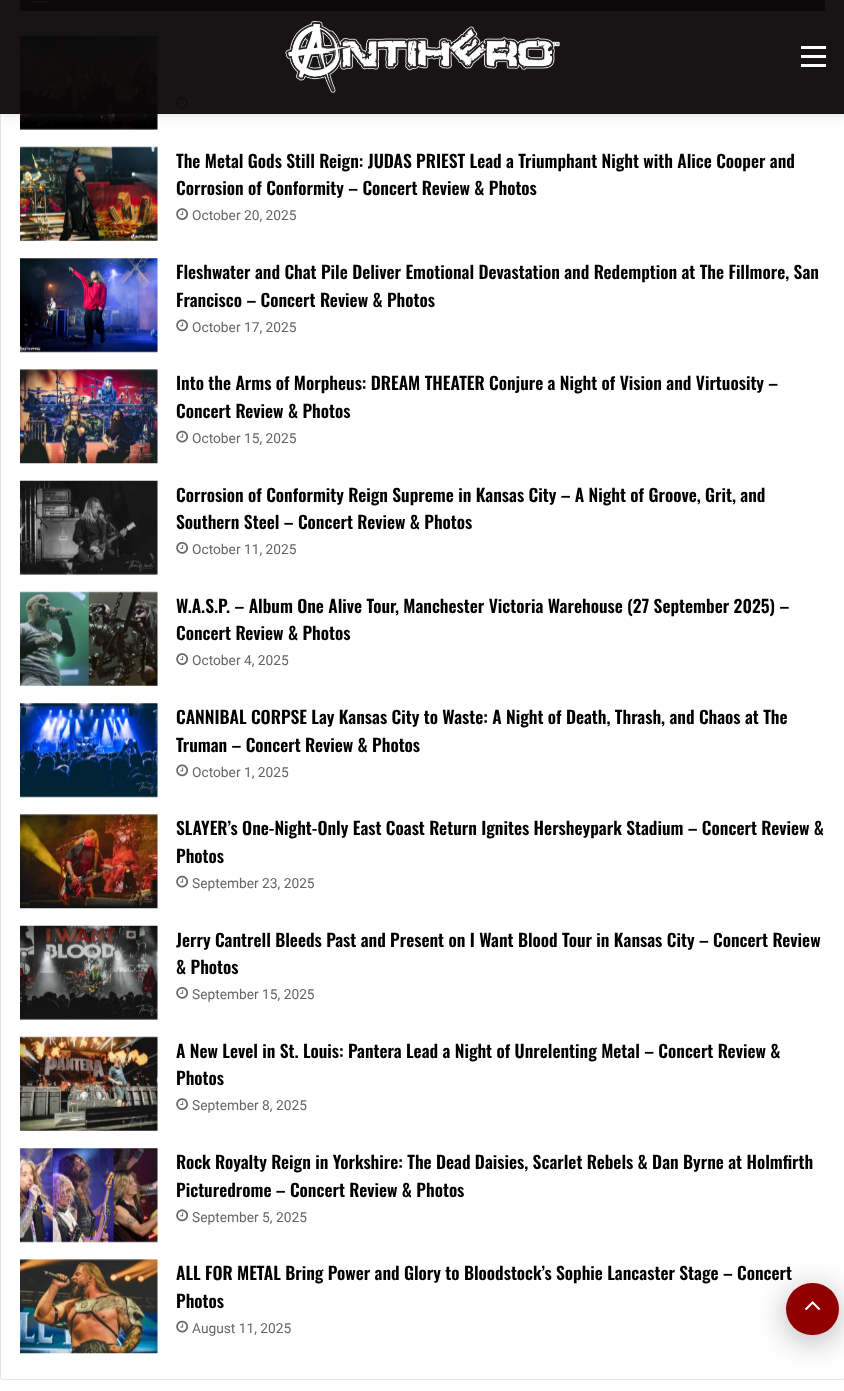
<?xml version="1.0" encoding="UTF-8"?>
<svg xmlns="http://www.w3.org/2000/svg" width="844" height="1391">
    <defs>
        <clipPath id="clip1"><path d="M 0 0 H 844 V 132 H 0 Z M 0 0 H 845 V 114 H 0 Z" clip-rule="evenodd"/></clipPath>
        <filter id="blur1" x="-50%" y="-200%" width="200%" height="500%"><feGaussianBlur stdDeviation="5"/></filter>
        <filter id="blur2" x="-50%" y="-200%" width="200%" height="500%"><feGaussianBlur stdDeviation="15.5"/></filter>
    </defs>
    <rect width="100%" height="100%" fill="#FFFFFF"/>
    <rect x="0.5" y="-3.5" width="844" height="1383" rx="2" fill="none" stroke="#E5E5E5"/>
    <rect x="20" y="0" width="805" height="11" fill="#131313"/>
    <image x="32" y="0" width="17" height="3" href="img_02.png"/>
    <image x="20" y="35" width="138" height="95" href="img_03.png"/>
    <image x="176" y="97" width="12" height="12" href="img_04.png"/>
    <g clip-path="url(#clip1)">
        <rect x="0" y="3" width="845" height="113" fill="#636363" fill-opacity="0.2" filter="url(#blur1)"/>
    </g>
    <rect x="0" y="0" width="844" height="114" fill="#0A0707" fill-opacity="0.95"/>
    <image x="285" y="21" width="275" height="72" href="img_01.png"/>
    <rect x="801" y="55" width="25" height="3" fill="#FFFFFF"/>
    <rect x="801" y="46" width="25" height="3" fill="#FFFFFF"/>
    <rect x="801" y="64" width="25" height="3" fill="#FFFFFF"/>
    <image x="20" y="146" width="138" height="95" href="img_05.png"/>
    <text font-family="Oswald" font-size="17.5" font-weight="600" fill="#000000">
        <tspan x="176" y="168">The Metal Gods Still Reign: JUDAS PRIEST Lead a Triumphant Night with Alice Cooper and</tspan>
        <tspan x="176" y="195">Corrosion of Conformity – Concert Review &amp; Photos</tspan>
    </text>
    <image x="176" y="208" width="12" height="12" href="img_06.png"/>
    <text x="192" y="220" font-family="Roboto" font-size="13.75" fill="#666666">October 20, 2025</text>
    <image x="20" y="258" width="138" height="95" href="img_07.png"/>
    <text font-family="Oswald" font-size="17.5" font-weight="600" fill="#000000">
        <tspan x="176" y="279">Fleshwater and Chat Pile Deliver Emotional Devastation and Redemption at The Fillmore, San</tspan>
        <tspan x="176" y="307">Francisco – Concert Review &amp; Photos</tspan>
    </text>
    <image x="176" y="319" width="12" height="13" href="img_08.png"/>
    <text x="192" y="332" font-family="Roboto" font-size="13.75" fill="#666666">October 17, 2025</text>
    <image x="20" y="369" width="138" height="95" href="img_09.png"/>
    <text font-family="Oswald" font-size="17.5" font-weight="600" fill="#000000">
        <tspan x="176" y="390">Into the Arms of Morpheus: DREAM THEATER Conjure a Night of Vision and Virtuosity –</tspan>
        <tspan x="176" y="418">Concert Review &amp; Photos</tspan>
    </text>
    <image x="176" y="430" width="12" height="13" href="img_10.png"/>
    <text x="192" y="443" font-family="Roboto" font-size="13.75" fill="#666666">October 15, 2025</text>
    <image x="20" y="480" width="138" height="95" href="img_11.png"/>
    <text font-family="Oswald" font-size="17.5" font-weight="600" fill="#000000">
        <tspan x="176" y="502">Corrosion of Conformity Reign Supreme in Kansas City – A Night of Groove, Grit, and</tspan>
        <tspan x="176" y="529">Southern Steel – Concert Review &amp; Photos</tspan>
    </text>
    <image x="176" y="542" width="12" height="12" href="img_04.png"/>
    <text x="192" y="554" font-family="Roboto" font-size="13.75" fill="#666666">October 11, 2025</text>
    <image x="20" y="591" width="138" height="95" href="img_12.png"/>
    <text font-family="Oswald" font-size="17.5" font-weight="600" fill="#000000">
        <tspan x="176" y="613">W.A.S.P. – Album One Alive Tour, Manchester Victoria Warehouse (27 September 2025) –</tspan>
        <tspan x="176" y="640">Concert Review &amp; Photos</tspan>
    </text>
    <image x="176" y="653" width="12" height="12" href="img_06.png"/>
    <text x="192" y="665" font-family="Roboto" font-size="13.75" fill="#666666">October 4, 2025</text>
    <image x="20" y="703" width="138" height="95" href="img_13.png"/>
    <text font-family="Oswald" font-size="17.5" font-weight="600" fill="#000000">
        <tspan x="176" y="724">CANNIBAL CORPSE Lay Kansas City to Waste: A Night of Death, Thrash, and Chaos at The</tspan>
        <tspan x="176" y="752">Truman – Concert Review &amp; Photos</tspan>
    </text>
    <image x="176" y="764" width="12" height="13" href="img_08.png"/>
    <text x="192" y="777" font-family="Roboto" font-size="13.75" fill="#666666">October 1, 2025</text>
    <image x="20" y="814" width="138" height="95" href="img_14.png"/>
    <text font-family="Oswald" font-size="17.5" font-weight="600" fill="#000000">
        <tspan x="176" y="835">SLAYER’s One-Night-Only East Coast Return Ignites Hersheypark Stadium – Concert Review &amp;</tspan>
        <tspan x="176" y="863">Photos</tspan>
    </text>
    <image x="176" y="875" width="12" height="13" href="img_10.png"/>
    <text x="192" y="888" font-family="Roboto" font-size="13.75" fill="#666666">September 23, 2025</text>
    <image x="20" y="925" width="138" height="95" href="img_15.png"/>
    <text font-family="Oswald" font-size="17.5" font-weight="600" fill="#000000">
        <tspan x="176" y="947">Jerry Cantrell Bleeds Past and Present on I Want Blood Tour in Kansas City – Concert Review</tspan>
        <tspan x="176" y="974">&amp; Photos</tspan>
    </text>
    <image x="176" y="987" width="12" height="12" href="img_04.png"/>
    <text x="192" y="999" font-family="Roboto" font-size="13.75" fill="#666666">September 15, 2025</text>
    <image x="20" y="1036" width="138" height="95" href="img_16.png"/>
    <text font-family="Oswald" font-size="17.5" font-weight="600" fill="#000000">
        <tspan x="176" y="1058">A New Level in St. Louis: Pantera Lead a Night of Unrelenting Metal – Concert Review &amp;</tspan>
        <tspan x="176" y="1085">Photos</tspan>
    </text>
    <image x="176" y="1098" width="12" height="12" href="img_06.png"/>
    <text x="192" y="1110" font-family="Roboto" font-size="13.75" fill="#666666">September 8, 2025</text>
    <image x="20" y="1148" width="138" height="95" href="img_17.png"/>
    <text font-family="Oswald" font-size="17.5" font-weight="600" fill="#000000">
        <tspan x="176" y="1169">Rock Royalty Reign in Yorkshire: The Dead Daisies, Scarlet Rebels &amp; Dan Byrne at Holmfirth</tspan>
        <tspan x="176" y="1197">Picturedrome – Concert Review &amp; Photos</tspan>
    </text>
    <image x="176" y="1209" width="12" height="13" href="img_08.png"/>
    <text x="192" y="1222" font-family="Roboto" font-size="13.75" fill="#666666">September 5, 2025</text>
    <image x="20" y="1259" width="138" height="95" href="img_18.png"/>
    <text font-family="Oswald" font-size="17.5" font-weight="600" fill="#000000">
        <tspan x="176" y="1280">ALL FOR METAL Bring Power and Glory to Bloodstock’s Sophie Lancaster Stage – Concert</tspan>
        <tspan x="176" y="1308">Photos</tspan>
    </text>
    <image x="176" y="1320" width="12" height="13" href="img_10.png"/>
    <text x="192" y="1333" font-family="Roboto" font-size="13.75" fill="#666666">August 11, 2025</text>
    <rect x="786" y="1289" width="53" height="52" rx="26" fill="#000000" fill-opacity="0.3" filter="url(#blur2)"/>
    <rect x="786" y="1283" width="53" height="52" rx="26" fill="#910000"/>
    <image x="805" y="1301" width="16" height="10" href="img_19.png"/>
</svg>
